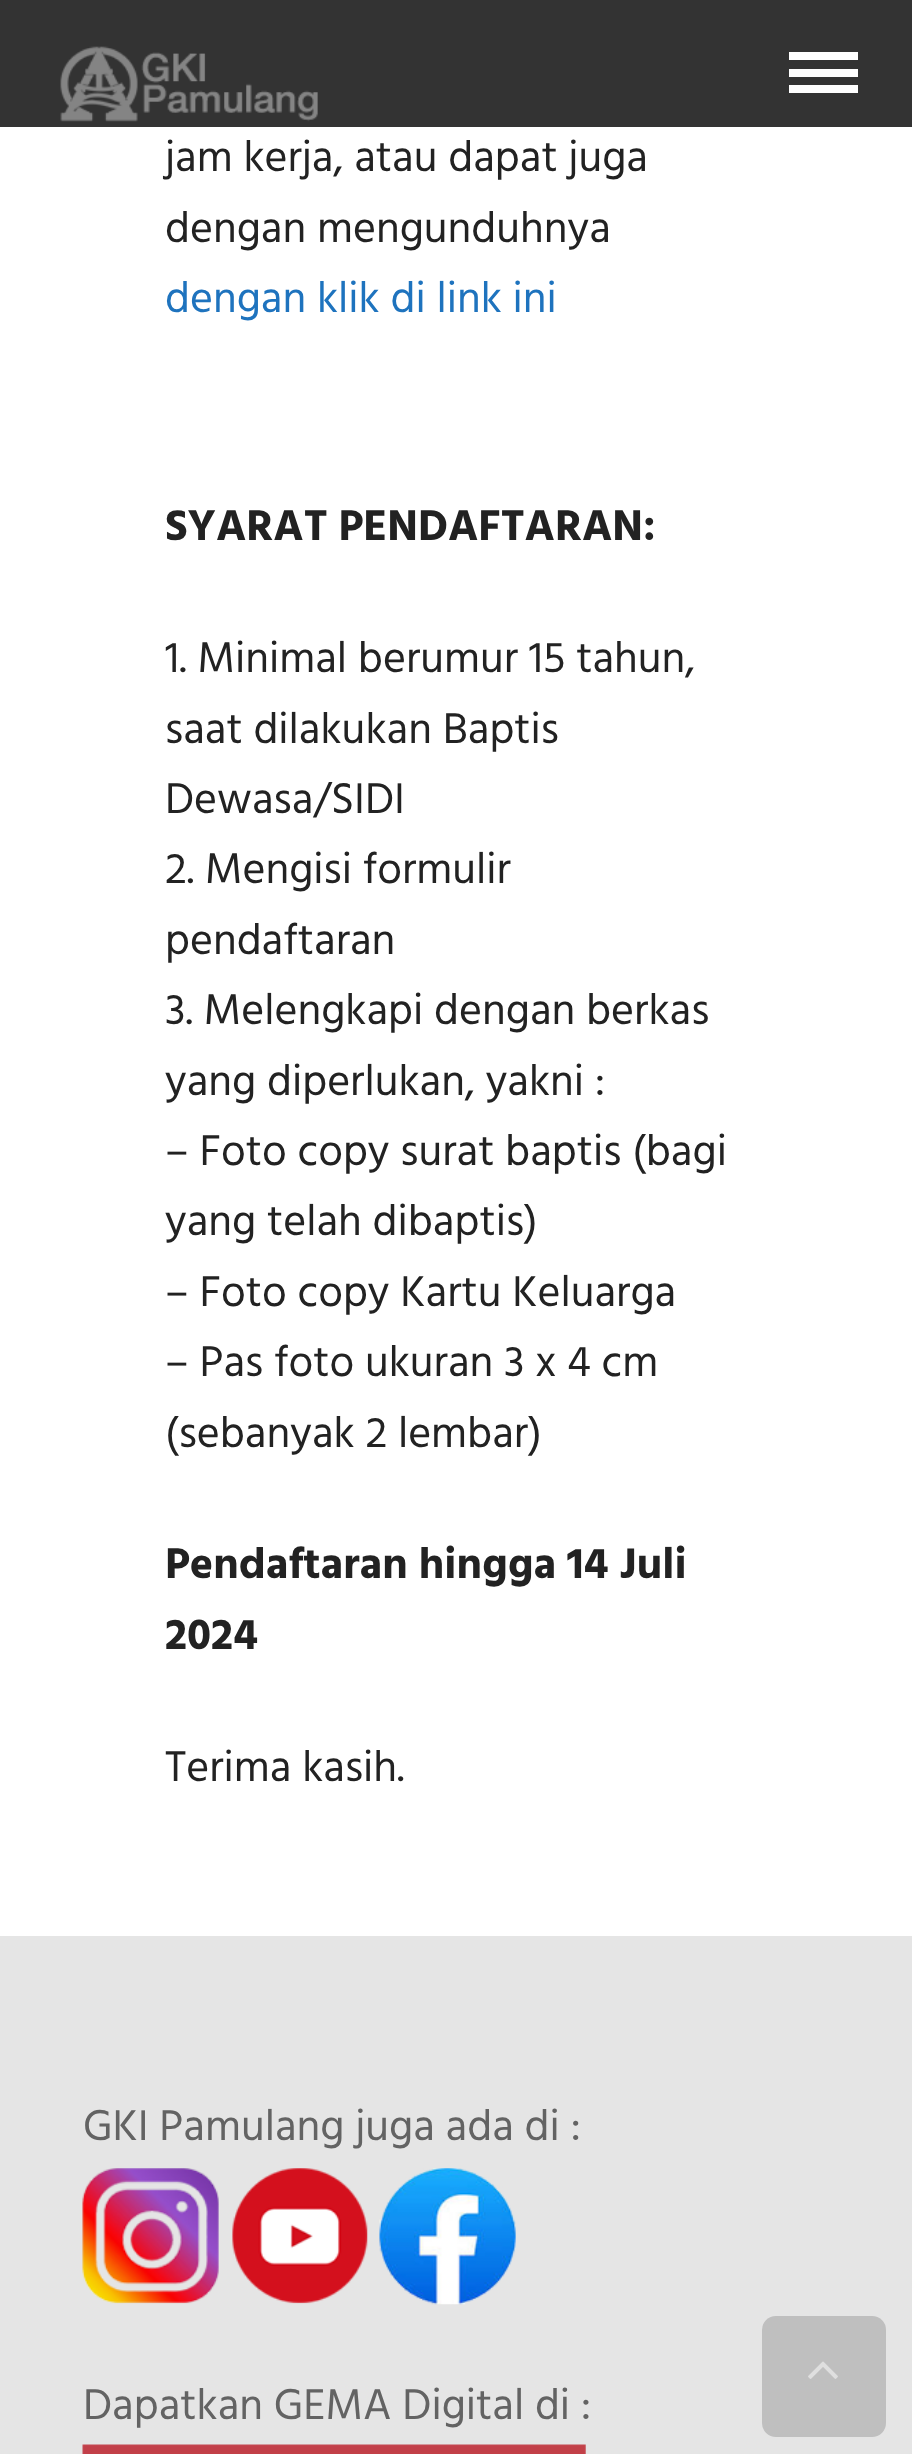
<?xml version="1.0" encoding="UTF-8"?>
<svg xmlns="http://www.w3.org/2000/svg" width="912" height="2454">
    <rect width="100%" height="100%" fill="#FFFFFF"/>
    <rect x="0" y="0" width="912" height="127" fill="#333333"/>
    <image x="60" y="46" width="258" height="76" href="img_01.png"/>
    <rect x="789" y="52" width="69" height="8" fill="#FFFFFF"/>
    <rect x="789" y="69" width="69" height="8" fill="#FFFFFF"/>
    <rect x="789" y="85" width="69" height="8" fill="#FFFFFF"/>
    <text font-family="Hind" font-size="44" fill="#222222">
        <tspan x="165" y="171">jam kerja, atau dapat juga</tspan>
        <tspan x="165" y="242">dengan mengunduhnya</tspan>
    </text>
    <text x="165" y="312" font-family="Hind" font-size="44" fill="#1E73BE">dengan klik di link ini</text>
    <text x="165" y="540" font-family="Hind" font-size="44" font-weight="700" fill="#222222">SYARAT PENDAFTARAN:</text>
    <text font-family="Hind" font-size="44" fill="#222222">
        <tspan x="165" y="672">1. Minimal berumur 15 tahun,</tspan>
        <tspan x="165" y="743">saat dilakukan Baptis</tspan>
        <tspan x="165" y="813">Dewasa/SIDI</tspan>
        <tspan x="165" y="883">2. Mengisi formulir</tspan>
        <tspan x="165" y="954">pendaftaran</tspan>
        <tspan x="165" y="1024">3. Melengkapi dengan berkas</tspan>
        <tspan x="165" y="1095">yang diperlukan, yakni :</tspan>
        <tspan x="165" y="1165">– Foto copy surat baptis (bagi</tspan>
        <tspan x="165" y="1235">yang telah dibaptis)</tspan>
        <tspan x="165" y="1306">– Foto copy Kartu Keluarga</tspan>
        <tspan x="165" y="1376">– Pas foto ukuran 3 x 4 cm</tspan>
        <tspan x="165" y="1447">(sebanyak 2 lembar)</tspan>
    </text>
    <text font-family="Hind" font-size="44" font-weight="700" fill="#222222">
        <tspan x="165" y="1578">Pendaftaran hingga 14 Juli</tspan>
        <tspan x="165" y="1649">2024</tspan>
    </text>
    <text x="165" y="1781" font-family="Hind" font-size="44" fill="#222222">Terima kasih.</text>
    <rect x="0" y="1936" width="912" height="518" fill="#E5E5E5"/>
    <text x="83" y="2140" font-family="Hind" font-size="44" fill="#636363">GKI Pamulang juga ada di :</text>
    <image x="82" y="2168" width="137" height="136" href="img_02.png"/>
    <image x="232" y="2168" width="136" height="136" href="img_03.png"/>
    <image x="379" y="2168" width="137" height="137" href="img_04.png"/>
    <text x="83" y="2419" font-family="Hind" font-size="44" fill="#636363">Dapatkan GEMA Digital di :</text>
    <image x="82" y="2444" width="504" height="10" href="img_05.png"/>
    <rect x="762" y="2316" width="124" height="121" rx="14" fill="#BFBFBF"/>
    <image x="808" y="2361" width="30" height="18" href="img_06.png"/>
</svg>
